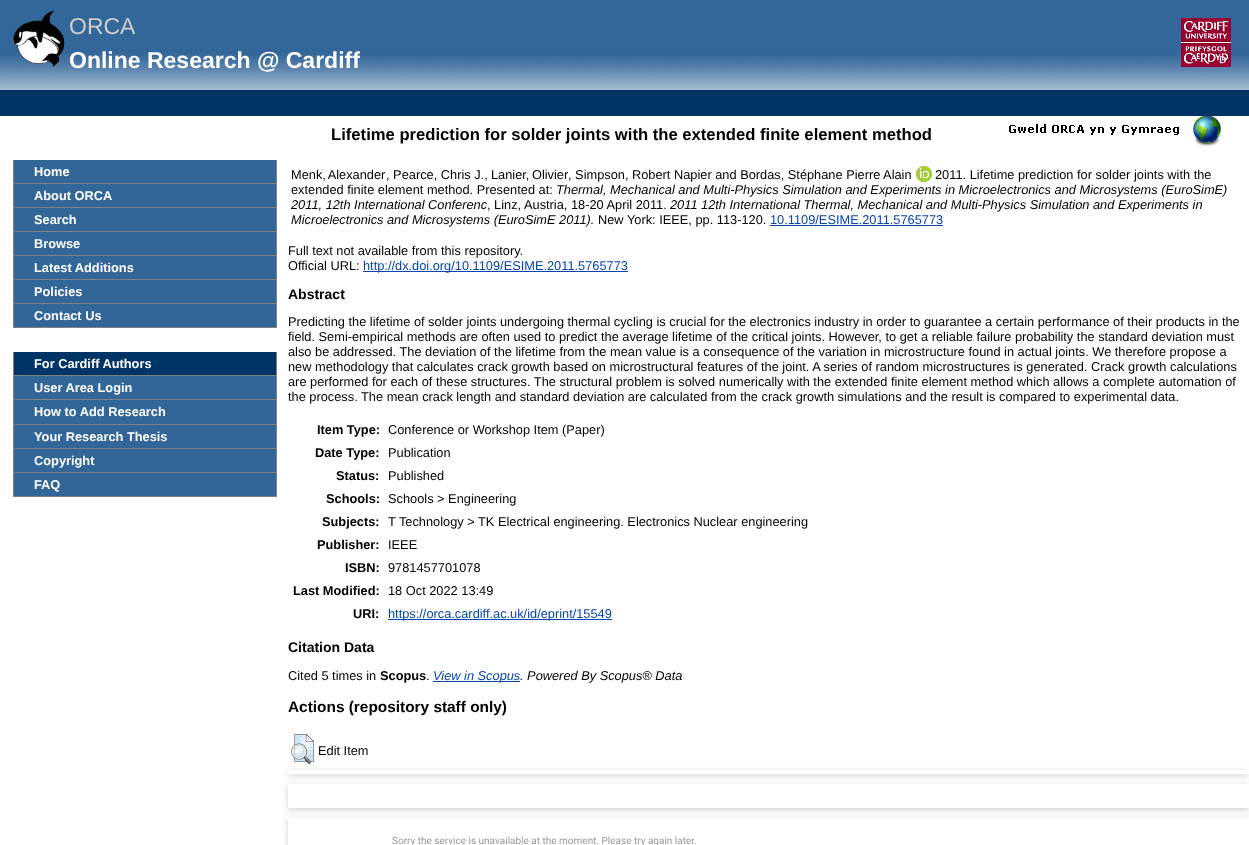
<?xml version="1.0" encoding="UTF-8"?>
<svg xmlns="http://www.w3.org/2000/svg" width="1249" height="845">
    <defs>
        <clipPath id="clip1"><path d="M 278 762 H 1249 V 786 H 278 Z M 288 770 H 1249 V 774 H 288 Z" clip-rule="evenodd"/></clipPath>
        <filter id="blur1" x="-50%" y="-200%" width="200%" height="500%"><feGaussianBlur stdDeviation="3"/></filter>
        <clipPath id="clip2"><path d="M 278 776 H 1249 V 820 H 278 Z M 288 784 H 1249 V 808 H 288 Z" clip-rule="evenodd"/></clipPath>
        <clipPath id="clip3"><path d="M 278 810 H 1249 V 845 H 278 Z M 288 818 H 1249 V 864 H 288 Z" clip-rule="evenodd"/></clipPath>
    </defs>
    <rect width="100%" height="100%" fill="#FFFFFF"/>
    <image x="0" y="0" width="1249" height="90" href="img_01.png"/>
    <image x="13" y="10" width="52" height="57" href="img_02.png"/>
    <text x="69" y="34" font-family="Liberation Sans" font-size="23" fill="#CCCCCC">ORCA</text>
    <image x="1181" y="18" width="50" height="49" href="img_03.png"/>
    <text x="69" y="68" font-family="Liberation Sans" font-size="23" font-weight="700" fill="#FFFFFF">Online Research @ Cardiff</text>
    <rect x="0" y="90" width="1249" height="26" fill="#003466"/>
    <image x="1009" y="124" width="170" height="11" href="img_04.png"/>
    <image x="1193" y="116" width="28" height="31" href="img_05.png"/>
    <rect x="14" y="160" width="262" height="23" fill="#326699"/>
    <rect x="276" y="160" width="1" height="168" fill="#808080"/>
    <rect x="13" y="183" width="264" height="1" fill="#808080"/>
    <rect x="13" y="160" width="1" height="24" fill="#808080"/>
    <text x="34" y="176" font-family="Liberation Sans" font-size="12.8" font-weight="700" fill="#FFFFFF">Home</text>
    <rect x="14" y="184" width="262" height="23" fill="#326699"/>
    <rect x="13" y="207" width="264" height="1" fill="#808080"/>
    <rect x="13" y="184" width="1" height="24" fill="#808080"/>
    <text x="34" y="200" font-family="Liberation Sans" font-size="12.8" font-weight="700" fill="#FFFFFF">About ORCA</text>
    <rect x="14" y="208" width="262" height="23" fill="#326699"/>
    <rect x="13" y="231" width="264" height="1" fill="#808080"/>
    <rect x="13" y="208" width="1" height="24" fill="#808080"/>
    <text x="34" y="224" font-family="Liberation Sans" font-size="12.8" font-weight="700" fill="#FFFFFF">Search</text>
    <rect x="14" y="232" width="262" height="23" fill="#326699"/>
    <rect x="13" y="255" width="264" height="1" fill="#808080"/>
    <rect x="13" y="232" width="1" height="24" fill="#808080"/>
    <text x="34" y="248" font-family="Liberation Sans" font-size="12.8" font-weight="700" fill="#FFFFFF">Browse</text>
    <rect x="14" y="256" width="262" height="23" fill="#326699"/>
    <rect x="13" y="279" width="264" height="1" fill="#808080"/>
    <rect x="13" y="256" width="1" height="24" fill="#808080"/>
    <text x="34" y="272" font-family="Liberation Sans" font-size="12.8" font-weight="700" fill="#FFFFFF">Latest Additions</text>
    <rect x="14" y="280" width="262" height="23" fill="#326699"/>
    <rect x="13" y="303" width="264" height="1" fill="#808080"/>
    <rect x="13" y="280" width="1" height="24" fill="#808080"/>
    <text x="34" y="296" font-family="Liberation Sans" font-size="12.8" font-weight="700" fill="#FFFFFF">Policies</text>
    <rect x="14" y="304" width="262" height="23" fill="#326699"/>
    <rect x="13" y="327" width="264" height="1" fill="#808080"/>
    <rect x="13" y="304" width="1" height="24" fill="#808080"/>
    <text x="34" y="320" font-family="Liberation Sans" font-size="12.8" font-weight="700" fill="#FFFFFF">Contact Us</text>
    <rect x="14" y="352" width="262" height="23" fill="#003466"/>
    <rect x="276" y="352" width="1" height="145" fill="#808080"/>
    <rect x="13" y="375" width="264" height="1" fill="#808080"/>
    <rect x="13" y="352" width="1" height="24" fill="#808080"/>
    <text x="34" y="368" font-family="Liberation Sans" font-size="12.8" font-weight="700" fill="#FFFFFF">For Cardiff Authors</text>
    <rect x="14" y="376" width="262" height="23" fill="#326699"/>
    <rect x="13" y="399" width="264" height="1" fill="#808080"/>
    <rect x="13" y="376" width="1" height="24" fill="#808080"/>
    <text x="34" y="392" font-family="Liberation Sans" font-size="12.8" font-weight="700" fill="#FFFFFF">User Area Login</text>
    <rect x="14" y="400" width="262" height="24" fill="#326699"/>
    <rect x="13" y="424" width="264" height="1" fill="#808080"/>
    <rect x="13" y="400" width="1" height="25" fill="#808080"/>
    <text x="34" y="416" font-family="Liberation Sans" font-size="12.8" font-weight="700" fill="#FFFFFF">How to Add Research</text>
    <rect x="14" y="425" width="262" height="23" fill="#326699"/>
    <rect x="13" y="448" width="264" height="1" fill="#808080"/>
    <rect x="13" y="425" width="1" height="24" fill="#808080"/>
    <text x="34" y="441" font-family="Liberation Sans" font-size="12.8" font-weight="700" fill="#FFFFFF">Your Research Thesis</text>
    <rect x="14" y="449" width="262" height="23" fill="#326699"/>
    <rect x="13" y="472" width="264" height="1" fill="#808080"/>
    <rect x="13" y="449" width="1" height="24" fill="#808080"/>
    <text x="34" y="465" font-family="Liberation Sans" font-size="12.8" font-weight="700" fill="#FFFFFF">Copyright</text>
    <rect x="14" y="473" width="262" height="23" fill="#326699"/>
    <rect x="13" y="496" width="264" height="1" fill="#808080"/>
    <rect x="13" y="473" width="1" height="24" fill="#808080"/>
    <text x="34" y="489" font-family="Liberation Sans" font-size="12.8" font-weight="700" fill="#FFFFFF">FAQ</text>
    <text x="331" y="140" font-family="Liberation Sans" font-size="16.65" font-weight="700" fill="#000000">Lifetime prediction for solder joints with the extended finite element method</text>
    <text x="291" y="179" word-spacing="-1" font-family="Liberation Sans" font-size="12.8" fill="#000000">Menk, Alexander</text>
    <text x="386" y="179" font-family="Liberation Sans" font-size="12.8" fill="#000000">, Pearce, Chris J.,</text>
    <text x="491" y="179" word-spacing="-1" font-family="Liberation Sans" font-size="12.8" fill="#000000">Lanier, Olivier</text>
    <text x="568" y="179" font-family="Liberation Sans" font-size="12.8" fill="#000000">, Simpson, Robert Napier and Bordas, Stéphane Pierre Alain</text>
    <image x="916" y="166" width="16" height="16" href="img_06.png"/>
    <text x="935" y="179" font-family="Liberation Sans" font-size="12.8" fill="#000000">2011. Lifetime prediction for solder joints with the</text>
    <text x="291" y="194" font-family="Liberation Sans" font-size="12.8" fill="#000000">extended finite element method. Presented at:</text>
    <text x="556" y="194" font-family="Liberation Sans" font-size="12.8" font-style="italic" fill="#000000">Thermal, Mechanical and Multi-Physics Simulation and Experiments in Microelectronics and Microsystems (EuroSimE)</text>
    <text x="291" y="209" font-family="Liberation Sans" font-size="12.8" font-style="italic" fill="#000000">2011, 12th International Conferenc</text>
    <text x="487" y="209" font-family="Liberation Sans" font-size="12.8" fill="#000000">, Linz, Austria, 18-20 April 2011.</text>
    <text x="670" y="209" font-family="Liberation Sans" font-size="12.8" font-style="italic" fill="#000000">2011 12th International Thermal, Mechanical and Multi-Physics Simulation and Experiments in</text>
    <text x="291" y="224" font-family="Liberation Sans" font-size="12.8" font-style="italic" fill="#000000">Microelectronics and Microsystems (EuroSimE 2011).</text>
    <text x="598" y="224" font-family="Liberation Sans" font-size="12.8" fill="#000000">New York: IEEE, pp. 113-120.</text>
    <text x="770" y="224" font-family="Liberation Sans" font-size="12.8" fill="#0645AD">10.1109/ESIME.2011.5765773</text>
    <rect x="770" y="225" width="173" height="1" fill="#0645AD"/>
    <text font-family="Liberation Sans" font-size="12.8" fill="#000000">
        <tspan x="288" y="255">Full text not available from this repository.</tspan>
        <tspan x="288" y="270">Official URL:</tspan>
    </text>
    <rect x="363" y="271" width="265" height="1" fill="#0645AD"/>
    <text x="363" y="270" font-family="Liberation Sans" font-size="12.8" fill="#0645AD">http://dx.doi.org/10.1109/ESIME.2011.5765773</text>
    <text x="288" y="299" font-family="Liberation Sans" font-size="14" font-weight="700" fill="#000000">Abstract</text>
    <text font-family="Liberation Sans" font-size="12.8" fill="#000000">
        <tspan x="288" y="326">Predicting the lifetime of solder joints undergoing thermal cycling is crucial for the electronics industry in order to guarantee a certain performance of their products in the</tspan>
        <tspan x="288" y="341">field. Semi-empirical methods are often used to predict the average lifetime of the critical joints. However, to get a reliable failure probability the standard deviation must</tspan>
        <tspan x="288" y="356">also be addressed. The deviation of the lifetime from the mean value is a consequence of the variation in microstructure found in actual joints. We therefore propose a</tspan>
        <tspan x="288" y="371">new methodology that calculates crack growth based on microstructural features of the joint. A series of random microstructures is generated. Crack growth calculations</tspan>
        <tspan x="288" y="386">are performed for each of these structures. The structural problem is solved numerically with the extended finite element method which allows a complete automation of</tspan>
        <tspan x="288" y="401">the process. The mean crack length and standard deviation are calculated from the crack growth simulations and the result is compared to experimental data.</tspan>
    </text>
    <text x="317" y="434" font-family="Liberation Sans" font-size="12.8" font-weight="700" fill="#000000">Item Type:</text>
    <text x="388" y="434" font-family="Liberation Sans" font-size="12.8" fill="#000000">Conference or Workshop Item (Paper)</text>
    <text x="315" y="457" font-family="Liberation Sans" font-size="12.8" font-weight="700" fill="#000000">Date Type:</text>
    <text x="388" y="457" font-family="Liberation Sans" font-size="12.8" fill="#000000">Publication</text>
    <text x="336" y="480" font-family="Liberation Sans" font-size="12.8" font-weight="700" fill="#000000">Status:</text>
    <text x="388" y="480" font-family="Liberation Sans" font-size="12.8" fill="#000000">Published</text>
    <text x="326" y="503" font-family="Liberation Sans" font-size="12.8" font-weight="700" fill="#000000">Schools:</text>
    <text x="388" y="503" font-family="Liberation Sans" font-size="12.8" fill="#000000">Schools &gt; Engineering</text>
    <text x="322" y="526" font-family="Liberation Sans" font-size="12.8" font-weight="700" fill="#000000">Subjects:</text>
    <text x="388" y="526" font-family="Liberation Sans" font-size="12.8" fill="#000000">T Technology &gt; TK Electrical engineering. Electronics Nuclear engineering</text>
    <text x="317" y="549" font-family="Liberation Sans" font-size="12.8" font-weight="700" fill="#000000">Publisher:</text>
    <text x="388" y="549" font-family="Liberation Sans" font-size="12.8" fill="#000000">IEEE</text>
    <text x="345" y="572" font-family="Liberation Sans" font-size="12.8" font-weight="700" fill="#000000">ISBN:</text>
    <text x="388" y="572" font-family="Liberation Sans" font-size="12.8" fill="#000000">9781457701078</text>
    <text x="293" y="595" font-family="Liberation Sans" font-size="12.8" font-weight="700" fill="#000000">Last Modified:</text>
    <text x="388" y="595" font-family="Liberation Sans" font-size="12.8" fill="#000000">18 Oct 2022 13:49</text>
    <text x="353" y="618" font-family="Liberation Sans" font-size="12.8" font-weight="700" fill="#000000">URI:</text>
    <rect x="388" y="619" width="224" height="1" fill="#0645AD"/>
    <text x="388" y="618" font-family="Liberation Sans" font-size="12.8" fill="#0645AD">https://orca.cardiff.ac.uk/id/eprint/15549</text>
    <text x="288" y="652" font-family="Liberation Sans" font-size="14" font-weight="700" fill="#000000">Citation Data</text>
    <text x="288" y="680" font-family="Liberation Sans" font-size="12.8" fill="#000000">Cited 5 times in</text>
    <text x="380" y="680" font-family="Liberation Sans" font-size="12.8" font-weight="700" fill="#000000">Scopus</text>
    <text x="426" y="680" font-family="Liberation Sans" font-size="12.8" fill="#000000">.</text>
    <rect x="433" y="681" width="87" height="1" fill="#0645AD"/>
    <text x="433" y="680" font-family="Liberation Sans" font-size="12.8" font-style="italic" fill="#0645AD">View in Scopus</text>
    <text x="520" y="680" font-family="Liberation Sans" font-size="12.8" font-style="italic" fill="#000000">. Powered By Scopus® Data</text>
    <text x="288" y="712" font-family="Liberation Sans" font-size="15.4" font-weight="700" fill="#000000">Actions (repository staff only)</text>
    <g clip-path="url(#clip1)">
        <rect x="288" y="772" width="961" height="4" fill="#646464" fill-opacity="0.3" filter="url(#blur1)"/>
    </g>
    <image x="291" y="734" width="23" height="30" href="img_07.png"/>
    <text x="318" y="755" font-family="Liberation Sans" font-size="12.8" fill="#000000">Edit Item</text>
    <g clip-path="url(#clip2)">
        <rect x="288" y="786" width="961" height="24" fill="#646464" fill-opacity="0.3" filter="url(#blur1)"/>
    </g>
    <g clip-path="url(#clip3)">
        <rect x="288" y="820" width="961" height="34" fill="#646464" fill-opacity="0.3" filter="url(#blur1)"/>
    </g>
    <text x="392" y="844" font-family="Roboto" font-size="10" fill="#999999">Sorry the service is unavailable at the moment. Please try again later.</text>
</svg>
